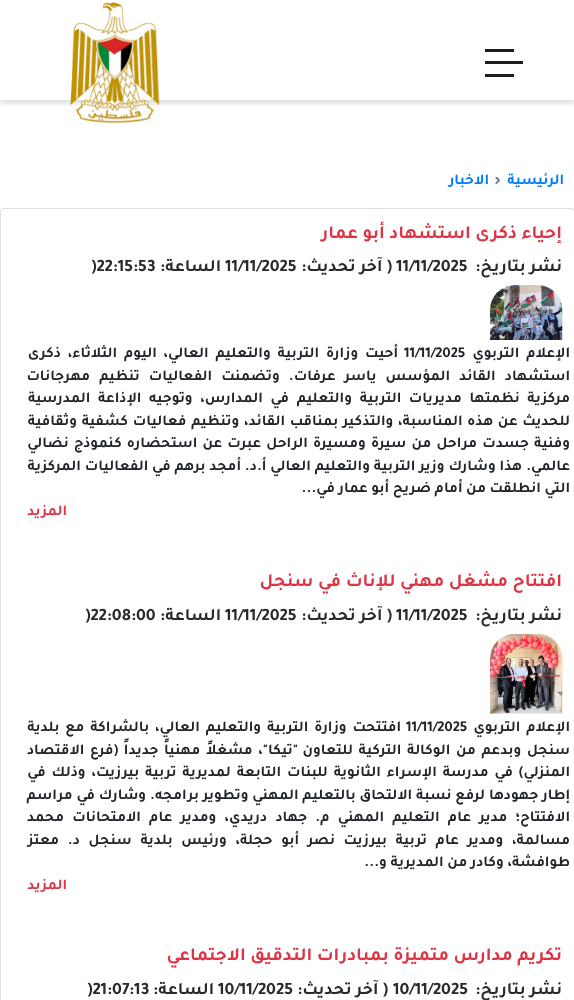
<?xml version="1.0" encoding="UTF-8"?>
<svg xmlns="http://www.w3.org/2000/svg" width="574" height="1000">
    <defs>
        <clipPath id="clip1"><rect x="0" y="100" width="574" height="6"/></clipPath>
        <filter id="blur1" x="-50%" y="-200%" width="200%" height="500%"><feGaussianBlur stdDeviation="3"/></filter>
    </defs>
    <rect width="100%" height="100%" fill="#FFFFFF"/>
    <g clip-path="url(#clip1)">
        <rect x="0" y="3" width="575" height="100" fill="#000000" fill-opacity="0.15" filter="url(#blur1)"/>
    </g>
    <rect x="485" y="61" width="38" height="3" fill="#1E1E1E"/>
    <rect x="485" y="49" width="29" height="3" fill="#1E1E1E"/>
    <rect x="485" y="74" width="29" height="3" fill="#1E1E1E"/>
    <image x="70" y="2" width="90" height="122" href="img_01.png"/>
    <text x="564" y="184" font-family="Tajawal" font-size="15" font-weight="700" direction="rtl" fill="#007BFF">الرئيسية</text>
    <text x="495" y="184" font-family="Tajawal" font-size="15" font-weight="700" fill="#6C757D">›</text>
    <text x="489" y="184" font-family="Tajawal" font-size="15" font-weight="700" direction="rtl" fill="#007BFF">الاخبار</text>
    <rect x="0.5" y="208.5" width="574" height="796" rx="3.5" fill="none" stroke="#DFDFDF"/>
    <text x="562" y="238" font-family="Tajawal" font-size="18.75" font-weight="700" direction="rtl" fill="#DC3545">إحياء ذكرى استشهاد أبو عمار</text>
    <text x="562" y="271" font-family="Tajawal" font-size="17.5" font-weight="700" direction="rtl" fill="#2A2A2A">نشر بتاريخ:</text>
    <text x="396" y="271" font-family="Tajawal" font-size="17.5" font-weight="700" fill="#2A2A2A">11/11/2025</text>
    <text x="392" y="271" font-family="Tajawal" font-size="17.5" font-weight="700" direction="rtl" fill="#2A2A2A">( آخر تحديث:</text>
    <text x="225" y="271" font-family="Tajawal" font-size="17.5" font-weight="700" fill="#2A2A2A">11/11/2025</text>
    <text x="221" y="271" font-family="Tajawal" font-size="17.5" font-weight="700" direction="rtl" fill="#2A2A2A">الساعة:</text>
    <text x="91" y="271" font-family="Tajawal" font-size="17.5" font-weight="700" fill="#2A2A2A">)22:15:53</text>
    <image x="490" y="285" width="73" height="55" href="img_02.png"/>
    <text x="570" y="357" word-spacing="3.25" font-family="Tajawal" font-size="15" font-weight="700" direction="rtl" fill="#212529">الإعلام التربوي</text>
    <text x="404" y="357" font-family="Tajawal" font-size="15" font-weight="700" fill="#212529">11/11/2025</text>
    <text x="398" y="357" word-spacing="3.25" font-family="Tajawal" font-size="15" font-weight="700" direction="rtl" fill="#212529">أحيت وزارة التربية والتعليم العالي، اليوم الثلاثاء، ذكرى</text>
    <text font-family="Tajawal" font-size="15" font-weight="700" direction="rtl" fill="#212529">
        <tspan x="570" y="380" word-spacing="5.5">استشهاد القائد المؤسس ياسر عرفات. وتضمنت الفعاليات تنظيم مهرجانات</tspan>
        <tspan x="570" y="402" word-spacing="4">مركزية نظمتها مديريات التربية</tspan>
    </text>
    <text x="352" y="402" word-spacing="4" font-family="Tajawal" font-size="15" font-weight="700" direction="rtl" fill="#212529">والتعليم في المدارس، وتوجيه الإذاعة المدرسية</text>
    <text font-family="Tajawal" font-size="15" font-weight="700" direction="rtl" fill="#212529">
        <tspan x="570" y="425" word-spacing="1.1">للحديث عن هذه المناسبة، والتذكير بمناقب القائد، وتنظيم فعاليات كشفية وثقافية</tspan>
        <tspan x="570" y="447" word-spacing="1.5">وفنية جسدت مراحل من سيرة ومسيرة الراحل عبرت عن استحضاره كنموذج نضالي</tspan>
        <tspan x="570" y="470">عالمي.</tspan>
    </text>
    <text x="522" y="470" word-spacing="0.25" font-family="Tajawal" font-size="15" font-weight="700" direction="rtl" fill="#212529">هذا وشارك وزير التربية والتعليم العالي أ.د. أمجد برهم في الفعاليات المركزية</text>
    <text x="570" y="492" font-family="Tajawal" font-size="15" font-weight="700" direction="rtl" fill="#212529">التي انطلقت من أمام ضريح أبو عمار في...</text>
    <text x="67" y="515" font-family="Tajawal" font-size="15" font-weight="700" direction="rtl" fill="#DC3545">المزيد</text>
    <text x="562" y="586" font-family="Tajawal" font-size="18.75" font-weight="700" direction="rtl" fill="#DC3545">افتتاح مشغل مهني للإناث في سنجل</text>
    <text x="562" y="620" font-family="Tajawal" font-size="17.5" font-weight="700" direction="rtl" fill="#2A2A2A">نشر بتاريخ:</text>
    <text x="396" y="620" font-family="Tajawal" font-size="17.5" font-weight="700" fill="#2A2A2A">11/11/2025</text>
    <text x="392" y="620" font-family="Tajawal" font-size="17.5" font-weight="700" direction="rtl" fill="#2A2A2A">( آخر تحديث:</text>
    <text x="225" y="620" font-family="Tajawal" font-size="17.5" font-weight="700" fill="#2A2A2A">11/11/2025</text>
    <text x="221" y="620" font-family="Tajawal" font-size="17.5" font-weight="700" direction="rtl" fill="#2A2A2A">الساعة:</text>
    <text x="85" y="620" font-family="Tajawal" font-size="17.5" font-weight="700" fill="#2A2A2A">)22:08:00</text>
    <image x="490" y="633" width="73" height="81" href="img_03.png"/>
    <text x="570" y="731" word-spacing="2.25" font-family="Tajawal" font-size="15" font-weight="700" direction="rtl" fill="#212529">الإعلام التربوي</text>
    <text x="406" y="731" font-family="Tajawal" font-size="15" font-weight="700" fill="#212529">11/11/2025</text>
    <text x="401" y="731" word-spacing="2.25" font-family="Tajawal" font-size="15" font-weight="700" direction="rtl" fill="#212529">افتتحت وزارة التربية والتعليم العالي، بالشراكة مع بلدية</text>
    <text x="570" y="754" word-spacing="2" font-family="Tajawal" font-size="15" font-weight="700" direction="rtl" fill="#212529">سنجل وبدعم من الوكالة التركية للتعاون</text>
    <text x="298" y="754" word-spacing="2" font-family="Tajawal" font-size="15" font-weight="700" direction="rtl" fill="#212529">"تيكا"، مشغلاً مهنياً جديداً (فرع الاقتصاد</text>
    <text font-family="Tajawal" font-size="15" font-weight="700" direction="rtl" fill="#212529">
        <tspan x="570" y="776" word-spacing="2.25">المنزلي) في مدرسة الإسراء الثانوية للبنات التابعة لمديرية تربية بيرزيت، وذلك في</tspan>
        <tspan x="570" y="799" word-spacing="0.25">إطار جهودها لرفع نسبة الالتحاق بالتعليم المهني وتطوير برامجه. وشارك في مراسم</tspan>
        <tspan x="570" y="821" word-spacing="4.6">الافتتاح؛ مدير عام التعليم المهني م. جهاد دريدي، ومدير عام الامتحانات محمد</tspan>
        <tspan x="570" y="844" word-spacing="5.1">مسالمة، ومدير عام تربية بيرزيت نصر أبو حجلة، ورئيس بلدية سنجل د. معتز</tspan>
        <tspan x="570" y="866">طوافشة، وكادر من المديرية و...</tspan>
    </text>
    <text x="67" y="889" font-family="Tajawal" font-size="15" font-weight="700" direction="rtl" fill="#DC3545">المزيد</text>
    <text x="562" y="960" font-family="Tajawal" font-size="18.75" font-weight="700" direction="rtl" fill="#DC3545">تكريم مدارس متميزة بمبادرات التدقيق الاجتماعي</text>
    <text x="562" y="994" font-family="Tajawal" font-size="17.5" font-weight="700" direction="rtl" fill="#2A2A2A">نشر بتاريخ:</text>
    <text x="393" y="994" font-family="Tajawal" font-size="17.5" font-weight="700" fill="#2A2A2A">10/11/2025</text>
    <text x="388" y="994" font-family="Tajawal" font-size="17.5" font-weight="700" direction="rtl" fill="#2A2A2A">( آخر تحديث:</text>
    <text x="218" y="994" font-family="Tajawal" font-size="17.5" font-weight="700" fill="#2A2A2A">10/11/2025</text>
    <text x="214" y="994" font-family="Tajawal" font-size="17.5" font-weight="700" direction="rtl" fill="#2A2A2A">الساعة:</text>
    <text x="87" y="994" font-family="Tajawal" font-size="17.5" font-weight="700" fill="#2A2A2A">)21:07:13</text>
</svg>
